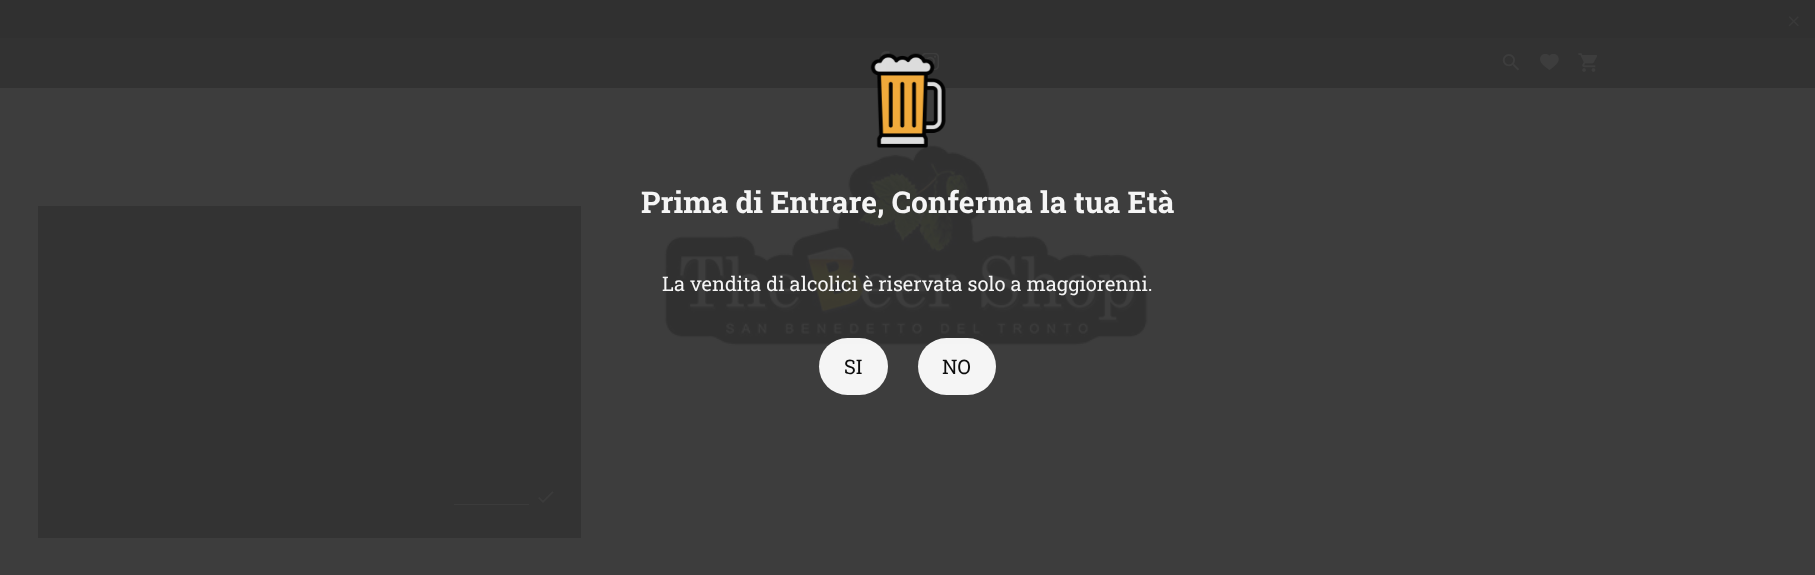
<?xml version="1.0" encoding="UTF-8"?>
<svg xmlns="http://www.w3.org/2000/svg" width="1815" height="575">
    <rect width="100%" height="100%" fill="#3D3D3D"/>
    <rect x="38" y="526" width="543" height="12" fill="#333333"/>
    <rect x="38" y="206" width="543" height="320" fill="#333333"/>
    <rect x="0" y="0" width="1815" height="38" fill="#303030"/>
    <image x="1788" y="16" width="11" height="11" href="img_01.png"/>
    <rect x="0" y="38" width="1815" height="50" fill="#323232"/>
    <image x="878" y="51" width="12" height="20" href="img_02.png"/>
    <image x="921" y="53" width="18" height="17" href="img_03.png"/>
    <image x="1502" y="54" width="18" height="17" href="img_04.png"/>
    <image x="1540" y="54" width="19" height="16" href="img_05.png"/>
    <image x="1578" y="53" width="20" height="19" href="img_06.png"/>
    <image x="664" y="145" width="484" height="201" href="img_07.png"/>
    <image x="870" y="53" width="76" height="95" href="img_08.png"/>
    <text x="641" y="213" font-family="Roboto Slab" font-size="30" font-weight="700" fill="#F5F5F5">Prima di Entrare, Conferma la tua Età</text>
    <text x="662" y="291" font-family="Roboto Slab" font-size="20" fill="#F5F5F5">La vendita di alcolici è riservata solo a maggiorenni.</text>
    <rect x="819" y="338" width="69" height="57" rx="28.5" fill="#FFFFFF" fill-opacity="0.95"/>
    <text x="844" y="374" font-family="Roboto Slab" font-size="20" fill="#0D0D0D">SI</text>
    <rect x="918" y="338" width="78" height="57" rx="28.5" fill="#FFFFFF" fill-opacity="0.95"/>
    <text x="942" y="374" font-family="Roboto Slab" font-size="20" fill="#0D0D0D">NO</text>
    <image x="538" y="491" width="16" height="12" href="img_09.png"/>
    <rect x="454" y="504" width="75" height="1" fill="#3D3D3D" fill-opacity="0.8"/>
</svg>
